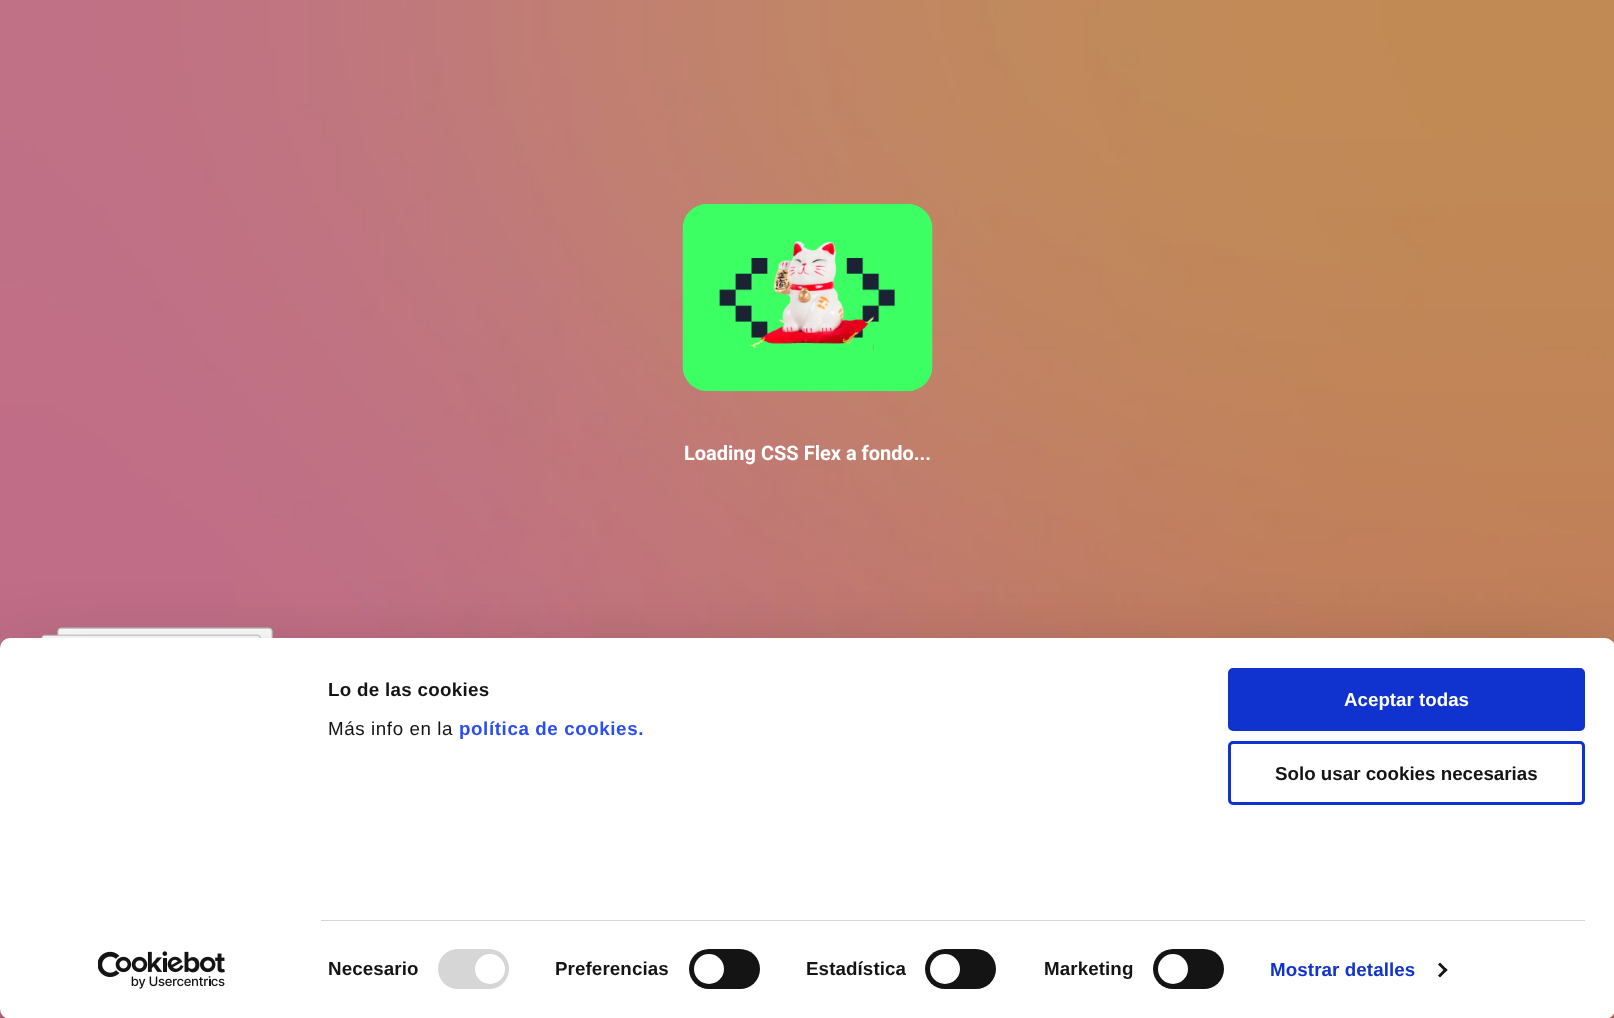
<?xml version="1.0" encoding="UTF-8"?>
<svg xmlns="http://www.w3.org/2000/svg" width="1614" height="1018">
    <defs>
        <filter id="blur1" x="-50%" y="-200%" width="200%" height="500%"><feGaussianBlur stdDeviation="44"/></filter>
    </defs>
    <rect width="100%" height="100%" fill="#FFFFFF"/>
    <image x="0" y="0" width="1614" height="1018" href="img_01.png"/>
    <image x="682" y="203" width="251" height="189" href="img_02.png"/>
    <text x="684" y="460" font-family="Roboto" font-size="20" font-weight="700" fill="#FFFFFF">Loading CSS Flex a fondo...</text>
    <image x="41" y="627" width="232" height="11" href="img_03.png"/>
    <rect x="0" y="675" width="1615" height="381" rx="10" fill="#000000" fill-opacity="0.3" filter="url(#blur1)"/>
    <rect x="0" y="638" width="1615" height="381" rx="10" fill="#FFFFFF"/>
    <text x="328" y="696" font-family="Liberation Sans" font-size="18.75" font-weight="700" letter-spacing="0.3" fill="#141414">Lo de las cookies</text>
    <text x="328" y="735" font-family="Liberation Sans" font-size="18.75" letter-spacing="0.6" fill="#141414">Más info en la</text>
    <text x="459" y="735" font-family="Liberation Sans" font-size="18.75" font-weight="700" letter-spacing="0.6" fill="#2A4EEF">política de cookies.</text>
    <rect x="321" y="920" width="1264" height="1" fill="#D6D6D6"/>
    <text x="328" y="975" font-family="Liberation Sans" font-size="18.75" font-weight="700" letter-spacing="0.1" fill="#141414">Necesario</text>
    <rect x="438" y="949" width="71" height="40" rx="20" fill="#D6D6D6"/>
    <circle cx="490" cy="969" r="15" fill="#FFFFFF"/>
    <text x="555" y="975" font-family="Liberation Sans" font-size="18.75" font-weight="700" letter-spacing="0.1" fill="#141414">Preferencias</text>
    <rect x="689" y="949" width="71" height="40" rx="20" fill="#141414"/>
    <circle cx="709" cy="969" r="15" fill="#FFFFFF"/>
    <text x="806" y="975" font-family="Liberation Sans" font-size="18.75" font-weight="700" letter-spacing="0.1" fill="#141414">Estadística</text>
    <rect x="925" y="949" width="71" height="40" rx="20" fill="#141414"/>
    <circle cx="945" cy="969" r="15" fill="#FFFFFF"/>
    <text x="1044" y="975" font-family="Liberation Sans" font-size="18.75" font-weight="700" letter-spacing="0.1" fill="#141414">Marketing</text>
    <rect x="1153" y="949" width="71" height="40" rx="20" fill="#141414"/>
    <circle cx="1173" cy="969" r="15" fill="#FFFFFF"/>
    <text x="1270" y="976" font-family="Liberation Sans" font-size="18.75" font-weight="700" letter-spacing="0.1" fill="#1032CF">Mostrar detalles</text>
    <path d="M 1440 962.5 L 1447.5 970 L 1445.5 972 L 1438 964.5 Z" fill="#141414"/>
    <path d="M 1445.5 968 L 1447.5 970 L 1440 977.5 L 1438 975.5 Z" fill="#141414"/>
    <rect x="1229.5" y="669.5" width="354" height="60" rx="3.5" fill="#1032CF" stroke="#1032CF" stroke-width="3"/>
    <text x="1344" y="706" font-family="Liberation Sans" font-size="18.75" font-weight="700" fill="#FFFFFF">Aceptar todas</text>
    <rect x="1229.5" y="742.5" width="354" height="61" rx="3.5" fill="none" stroke="#1032CF" stroke-width="3"/>
    <text x="1275" y="780" font-family="Liberation Sans" font-size="18.75" font-weight="700" fill="#141414">Solo usar cookies necesarias</text>
    <image x="98" y="951" width="127" height="38" href="img_04.png"/>
</svg>
